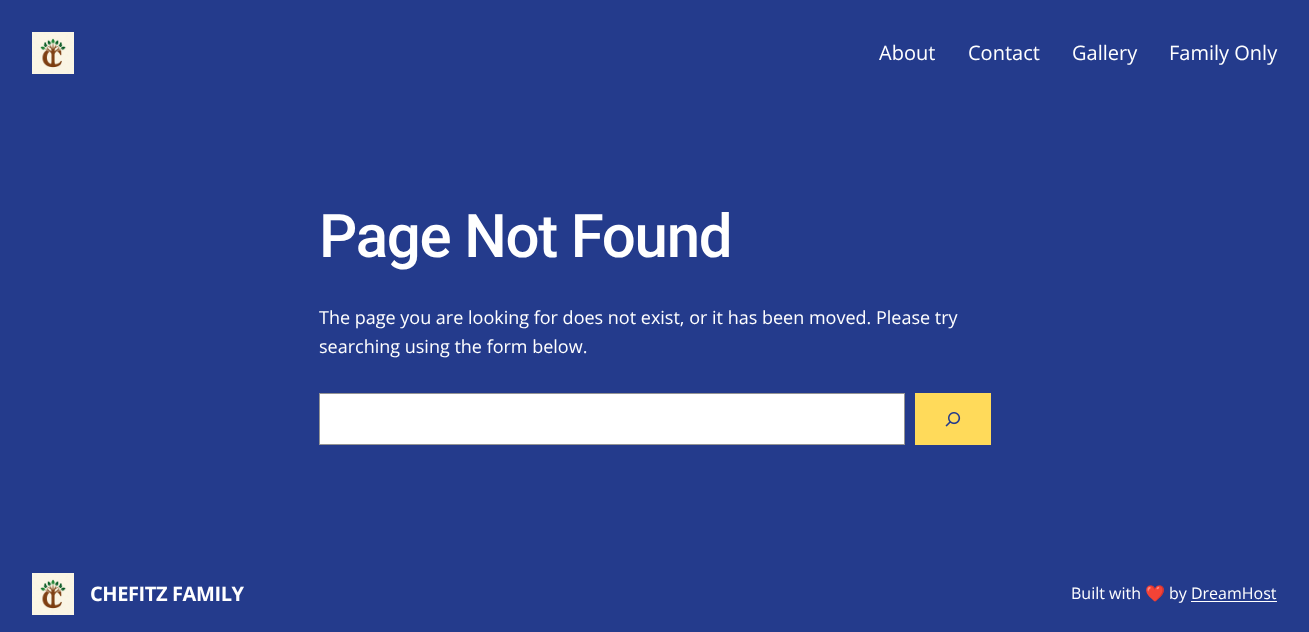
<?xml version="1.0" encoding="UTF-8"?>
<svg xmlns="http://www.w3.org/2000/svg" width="1309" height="632">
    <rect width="100%" height="100%" fill="#243B8C"/>
    <image x="32" y="32" width="42" height="42" href="img_01.png"/>
    <text x="879" y="60" font-family="Open Sans" font-size="20" fill="#FFFFFF">About</text>
    <text x="968" y="60" font-family="Open Sans" font-size="20" fill="#FFFFFF">Contact</text>
    <text x="1072" y="60" font-family="Open Sans" font-size="20" fill="#FFFFFF">Gallery</text>
    <text x="1169" y="60" font-family="Open Sans" font-size="20" fill="#FFFFFF">Family Only</text>
    <text x="319" y="257" font-family="Roboto" font-size="60" font-weight="500" letter-spacing="-1.25" fill="#FFFFFF">Page Not Found</text>
    <text font-family="Open Sans" font-size="18" fill="#FFFFFF">
        <tspan x="319" y="324">The page you are looking for does not exist, or it has been moved. Please try</tspan>
        <tspan x="319" y="353">searching using the form below.</tspan>
    </text>
    <rect x="319.5" y="393.5" width="585" height="51" fill="#FFFFFF" stroke="#949494"/>
    <rect x="915" y="393" width="76" height="52" fill="#FFDA5A"/>
    <image x="945" y="412" width="16" height="15" href="img_02.png"/>
    <image x="32" y="573" width="42" height="42" href="img_01.png"/>
    <text x="90" y="601" font-family="Open Sans" font-size="20" font-weight="700" letter-spacing="-0.4" fill="#FFFFFF">CHEFITZ FAMILY</text>
    <text x="1071" y="599" font-family="Open Sans" font-size="16" fill="#FFFFFF">Built with</text>
    <text x="1145" y="599" font-family="Noto Color Emoji" font-size="16" fill="#FFFFFF">❤️</text>
    <text x="1169" y="599" font-family="Open Sans" font-size="16" fill="#FFFFFF">by DreamHost</text>
    <rect x="1191" y="601" width="86" height="1" fill="#FFFFFF"/>
</svg>
